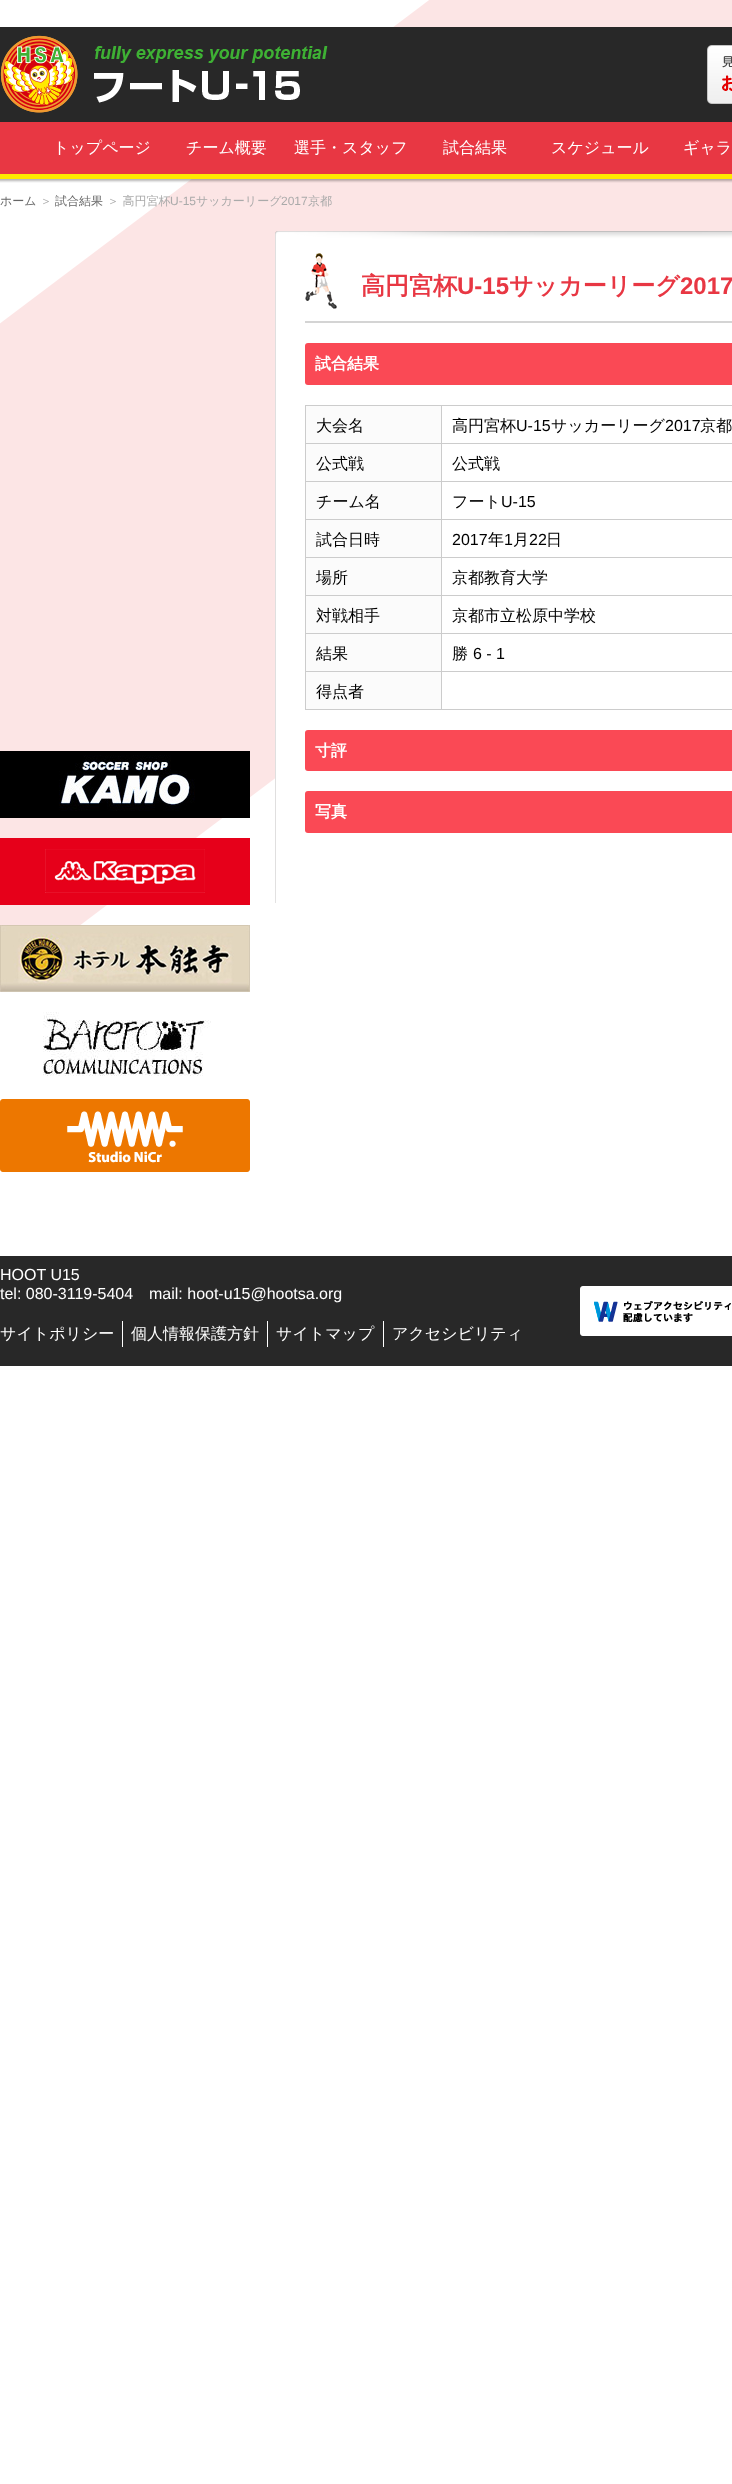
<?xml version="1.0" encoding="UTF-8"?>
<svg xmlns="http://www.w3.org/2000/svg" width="732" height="2484">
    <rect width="100%" height="100%" fill="#FFFFFF"/>
    <image x="0" y="0" width="732" height="986" href="img_01.png"/>
    <rect x="0" y="27" width="732" height="95" fill="#282828"/>
    <image x="0" y="35" width="328" height="78" href="img_02.png"/>
    <image x="707" y="45" width="25" height="59" href="img_03.png"/>
    <rect x="0" y="122" width="732" height="52" fill="#E83743"/>
    <text x="53" y="153" font-family="WenQuanYi Zen Hei" font-size="16" font-weight="500" fill="#FFFFFF">トップページ</text>
    <text x="186" y="153" font-family="WenQuanYi Zen Hei" font-size="16" font-weight="500" fill="#FFFFFF">チーム概要</text>
    <text x="294" y="153" font-family="WenQuanYi Zen Hei" font-size="16" font-weight="500" fill="#FFFFFF">選手・スタッフ</text>
    <text x="443" y="153" font-family="WenQuanYi Zen Hei" font-size="16" font-weight="500" fill="#FFFFFF">試合結果</text>
    <text x="551" y="153" font-family="WenQuanYi Zen Hei" font-size="16" font-weight="500" fill="#FFFFFF">スケジュール</text>
    <text x="683" y="153" font-family="WenQuanYi Zen Hei" font-size="16" font-weight="500" fill="#FFFFFF">ギャラ</text>
    <image x="0" y="174" width="732" height="9" href="img_04.png"/>
    <text x="0" y="205" font-family="WenQuanYi Zen Hei" font-size="12" font-weight="500" fill="#666666">ホーム</text>
    <text x="40" y="205" font-family="WenQuanYi Zen Hei" font-size="12" font-weight="500" fill="#AAAAAA">＞</text>
    <text x="55" y="205" font-family="WenQuanYi Zen Hei" font-size="12" font-weight="500" fill="#666666">試合結果</text>
    <text x="107" y="205" font-family="WenQuanYi Zen Hei" font-size="12" font-weight="500" fill="#AAAAAA">＞ 高円宮杯</text>
    <text x="170" y="205" font-family="Liberation Sans" font-size="12" fill="#AAAAAA">U-15</text>
    <text x="196" y="205" font-family="WenQuanYi Zen Hei" font-size="12" font-weight="500" fill="#AAAAAA">サッカーリーグ</text>
    <text x="281" y="205" font-family="Liberation Sans" font-size="12" fill="#AAAAAA">2017</text>
    <text x="308" y="205" font-family="WenQuanYi Zen Hei" font-size="12" font-weight="500" fill="#AAAAAA">京都</text>
    <image x="275" y="231" width="457" height="672" href="img_05.png"/>
    <image x="305" y="253" width="32" height="56" href="img_06.png"/>
    <rect x="305" y="321" width="427" height="2" fill="#D4D4D4"/>
    <text x="361" y="294" font-family="WenQuanYi Zen Hei" font-size="24" font-weight="700" fill="#E83743">高円宮杯</text>
    <text x="457" y="294" font-family="Liberation Sans" font-size="24" font-weight="700" fill="#E83743">U-15</text>
    <text x="509" y="294" font-family="WenQuanYi Zen Hei" font-size="24" font-weight="700" fill="#E83743">サッカーリーグ</text>
    <text x="680" y="294" font-family="Liberation Sans" font-size="24" font-weight="700" fill="#E83743">2017</text>
    <rect x="305" y="343" width="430" height="42" rx="3" fill="#FA4955"/>
    <text x="315" y="369" font-family="WenQuanYi Zen Hei" font-size="16" font-weight="700" fill="#FFFFFF">試合結果</text>
    <rect x="305" y="405" width="427" height="1" fill="#CCCCCC"/>
    <rect x="305" y="709" width="427" height="1" fill="#CCCCCC"/>
    <rect x="305" y="405" width="1" height="305" fill="#CCCCCC"/>
    <rect x="306" y="406" width="135" height="37" fill="#FBFBFB"/>
    <text x="316" y="431" font-family="WenQuanYi Zen Hei" font-size="16" font-weight="500" fill="#000000">大会名</text>
    <rect x="441" y="443" width="291" height="1" fill="#CCCCCC"/>
    <rect x="441" y="481" width="291" height="1" fill="#CCCCCC"/>
    <rect x="441" y="519" width="291" height="1" fill="#CCCCCC"/>
    <rect x="441" y="557" width="291" height="1" fill="#CCCCCC"/>
    <rect x="441" y="595" width="291" height="1" fill="#CCCCCC"/>
    <rect x="441" y="633" width="291" height="1" fill="#CCCCCC"/>
    <rect x="441" y="671" width="291" height="1" fill="#CCCCCC"/>
    <rect x="441" y="671" width="1" height="39" fill="#CCCCCC"/>
    <rect x="305" y="671" width="137" height="1" fill="#CCCCCC"/>
    <rect x="441" y="633" width="1" height="39" fill="#CCCCCC"/>
    <rect x="305" y="633" width="137" height="1" fill="#CCCCCC"/>
    <rect x="441" y="595" width="1" height="39" fill="#CCCCCC"/>
    <rect x="305" y="595" width="137" height="1" fill="#CCCCCC"/>
    <rect x="441" y="557" width="1" height="39" fill="#CCCCCC"/>
    <rect x="305" y="557" width="137" height="1" fill="#CCCCCC"/>
    <rect x="441" y="519" width="1" height="39" fill="#CCCCCC"/>
    <rect x="305" y="519" width="137" height="1" fill="#CCCCCC"/>
    <rect x="441" y="481" width="1" height="39" fill="#CCCCCC"/>
    <rect x="305" y="481" width="137" height="1" fill="#CCCCCC"/>
    <rect x="441" y="443" width="1" height="39" fill="#CCCCCC"/>
    <rect x="305" y="443" width="137" height="1" fill="#CCCCCC"/>
    <rect x="441" y="405" width="1" height="39" fill="#CCCCCC"/>
    <text x="452" y="431" font-family="WenQuanYi Zen Hei" font-size="16" font-weight="500" fill="#000000">高円宮杯</text>
    <text x="516" y="431" font-family="Liberation Sans" font-size="16" fill="#000000">U-15</text>
    <text x="551" y="431" font-family="WenQuanYi Zen Hei" font-size="16" font-weight="500" fill="#000000">サッカーリーグ</text>
    <text x="665" y="431" font-family="Liberation Sans" font-size="16" fill="#000000">2017</text>
    <text x="700" y="431" font-family="WenQuanYi Zen Hei" font-size="16" font-weight="500" fill="#000000">京都</text>
    <rect x="306" y="444" width="135" height="37" fill="#FBFBFB"/>
    <text x="316" y="469" font-family="WenQuanYi Zen Hei" font-size="16" font-weight="500" fill="#000000">公式戦</text>
    <text x="452" y="469" font-family="WenQuanYi Zen Hei" font-size="16" font-weight="500" fill="#000000">公式戦</text>
    <rect x="306" y="482" width="135" height="37" fill="#FBFBFB"/>
    <text x="316" y="507" font-family="WenQuanYi Zen Hei" font-size="16" font-weight="500" fill="#000000">チーム名</text>
    <text x="452" y="507" font-family="WenQuanYi Zen Hei" font-size="16" font-weight="500" fill="#000000">フート</text>
    <text x="501" y="507" font-family="Liberation Sans" font-size="16" fill="#000000">U-15</text>
    <rect x="306" y="520" width="135" height="37" fill="#FBFBFB"/>
    <text x="316" y="545" font-family="WenQuanYi Zen Hei" font-size="16" font-weight="500" fill="#000000">試合日時</text>
    <text x="452" y="545" font-family="Liberation Sans" font-size="16" fill="#000000">2017</text>
    <text x="488" y="545" font-family="WenQuanYi Zen Hei" font-size="16" font-weight="500" fill="#000000">年</text>
    <text x="504" y="545" font-family="Liberation Sans" font-size="16" fill="#000000">1</text>
    <text x="513" y="545" font-family="WenQuanYi Zen Hei" font-size="16" font-weight="500" fill="#000000">月</text>
    <text x="529" y="545" font-family="Liberation Sans" font-size="16" fill="#000000">22</text>
    <text x="546" y="545" font-family="WenQuanYi Zen Hei" font-size="16" font-weight="500" fill="#000000">日</text>
    <rect x="306" y="558" width="135" height="37" fill="#FBFBFB"/>
    <text x="316" y="583" font-family="WenQuanYi Zen Hei" font-size="16" font-weight="500" fill="#000000">場所</text>
    <text x="452" y="583" font-family="WenQuanYi Zen Hei" font-size="16" font-weight="500" fill="#000000">京都教育大学</text>
    <rect x="306" y="596" width="135" height="37" fill="#FBFBFB"/>
    <text x="316" y="621" font-family="WenQuanYi Zen Hei" font-size="16" font-weight="500" fill="#000000">対戦相手</text>
    <text x="452" y="621" font-family="WenQuanYi Zen Hei" font-size="16" font-weight="500" fill="#000000">京都市立松原中学校</text>
    <rect x="306" y="634" width="135" height="37" fill="#FBFBFB"/>
    <text x="316" y="659" font-family="WenQuanYi Zen Hei" font-size="16" font-weight="500" fill="#000000">結果</text>
    <text x="452" y="659" font-family="WenQuanYi Zen Hei" font-size="16" font-weight="500" fill="#000000">勝</text>
    <text x="473" y="659" font-family="Liberation Sans" font-size="16" fill="#000000">6 - 1</text>
    <rect x="306" y="672" width="135" height="37" fill="#FBFBFB"/>
    <text x="316" y="697" font-family="WenQuanYi Zen Hei" font-size="16" font-weight="500" fill="#000000">得点者</text>
    <rect x="305" y="730" width="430" height="41" rx="3" fill="#FA4955"/>
    <text x="315" y="756" font-family="WenQuanYi Zen Hei" font-size="16" font-weight="700" fill="#FFFFFF">寸評</text>
    <rect x="305" y="791" width="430" height="42" rx="3" fill="#FA4955"/>
    <text x="315" y="817" font-family="WenQuanYi Zen Hei" font-size="16" font-weight="700" fill="#FFFFFF">写真</text>
    <image x="0" y="751" width="250" height="67" href="img_07.png"/>
    <image x="0" y="838" width="250" height="67" href="img_08.png"/>
    <image x="0" y="925" width="250" height="67" href="img_09.png"/>
    <image x="43" y="1012" width="168" height="64" href="img_10.png"/>
    <image x="0" y="1099" width="250" height="73" href="img_11.png"/>
    <rect x="0" y="1256" width="732" height="110" fill="#282828"/>
    <text font-family="Liberation Sans" font-size="16" fill="#FFFFFF">
        <tspan x="0" y="1280">HOOT U15</tspan>
        <tspan x="0" y="1299">tel: 080-3119-5404</tspan>
    </text>
    <text x="149" y="1299" font-family="Liberation Sans" font-size="16" fill="#FFFFFF">mail: hoot-u15@hootsa.org</text>
    <rect x="122" y="1321" width="1" height="26" fill="#FFFFFF"/>
    <text x="0" y="1339" font-family="WenQuanYi Zen Hei" font-size="16" font-weight="500" fill="#FFFFFF">サイトポリシー</text>
    <rect x="267" y="1321" width="1" height="26" fill="#FFFFFF"/>
    <text x="131" y="1339" font-family="WenQuanYi Zen Hei" font-size="16" font-weight="500" fill="#FFFFFF">個人情報保護方針</text>
    <rect x="383" y="1321" width="1" height="26" fill="#FFFFFF"/>
    <text x="276" y="1339" font-family="WenQuanYi Zen Hei" font-size="16" font-weight="500" fill="#FFFFFF">サイトマップ</text>
    <text x="392" y="1339" font-family="WenQuanYi Zen Hei" font-size="16" font-weight="500" fill="#FFFFFF">アクセシビリティ</text>
    <image x="580" y="1286" width="152" height="50" href="img_12.png"/>
</svg>
